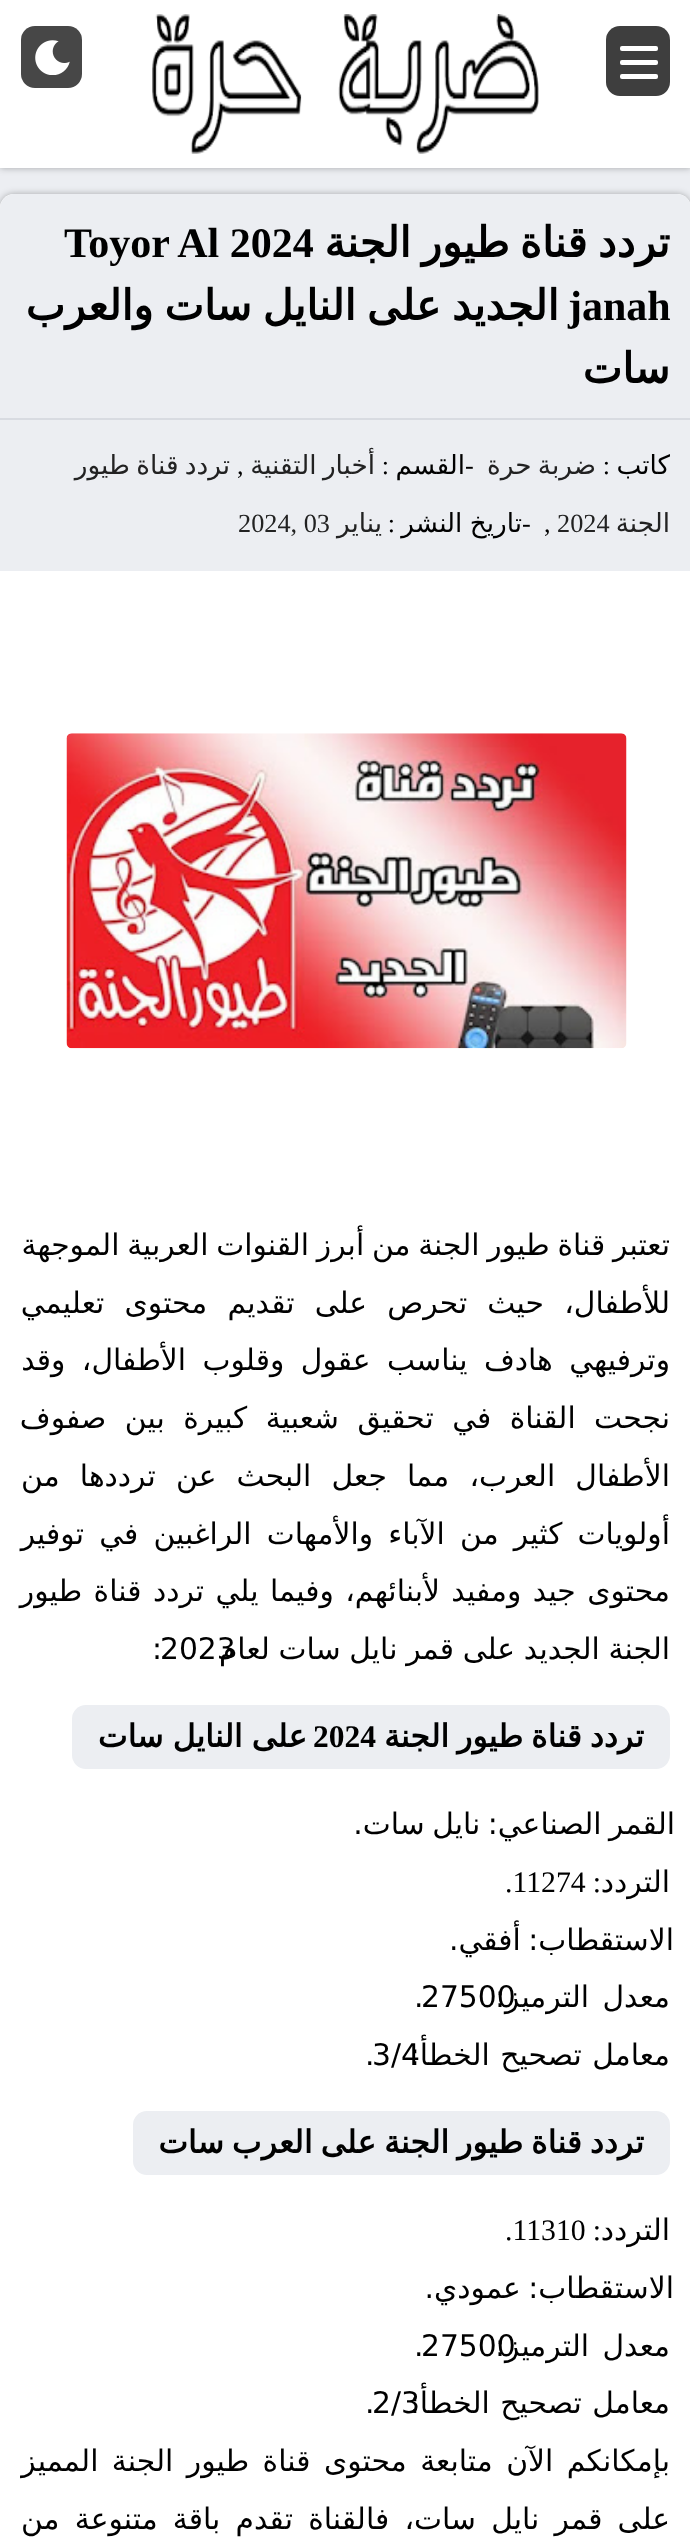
<?xml version="1.0" encoding="UTF-8"?>
<svg xmlns="http://www.w3.org/2000/svg" width="690" height="2539">
    <defs>
        <filter id="blur1" x="-50%" y="-200%" width="200%" height="500%"><feGaussianBlur stdDeviation="3.5"/></filter>
        <clipPath id="clip1"><rect x="21" y="212" width="649" height="189"/></clipPath>
    </defs>
    <rect width="100%" height="100%" fill="#ECEEF2"/>
    <rect x="0" y="0" width="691" height="168" fill="#000000" fill-opacity="0.3" filter="url(#blur1)"/>
    <rect x="0" y="0" width="690" height="168" fill="#FFFFFF"/>
    <image x="152" y="14" width="387" height="140" href="img_01.png"/>
    <rect x="606" y="26" width="64" height="70" rx="14" fill="#3E3E3E"/>
    <rect x="620" y="46" width="38" height="5" rx="2" fill="#FFFFFF"/>
    <rect x="620" y="60" width="38" height="5" rx="2" fill="#FFFFFF"/>
    <rect x="620" y="74" width="38" height="5" rx="2" fill="#FFFFFF"/>
    <rect x="21" y="26" width="61" height="62" rx="14" fill="#474747"/>
    <image x="35" y="40" width="35" height="35" href="img_02.png"/>
    <rect x="0" y="194" width="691" height="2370" rx="14" fill="#000000" fill-opacity="0.3" filter="url(#blur1)"/>
    <rect x="0" y="194" width="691" height="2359" rx="14" fill="#FFFFFF"/>
    <path d="M 14 194 H 677 C 684.5 194 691 200.5 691 208 V 571 H 0 V 208 C 0 200.5 6.5 194 14 194 Z" fill="#ECEEF2"/>
    <g clip-path="url(#clip1)">
        <text x="670" y="257" word-spacing="-3" font-family="DejaVu Sans" font-size="42" font-weight="700" direction="rtl" fill="#000000">تردد قناة طيور الجنة</text>
    </g>
    <text x="64" y="257" font-family="Liberation Serif" font-size="42" font-weight="700" fill="#000000">Toyor Al 2024</text>
    <text x="568" y="320" font-family="Liberation Serif" font-size="42" font-weight="700" fill="#000000">janah</text>
    <text x="559" y="320" word-spacing="-2.5" font-family="DejaVu Sans" font-size="42" font-weight="700" direction="rtl" fill="#000000">الجديد على النايل سات والعرب</text>
    <text x="670" y="383" font-family="DejaVu Sans" font-size="42" font-weight="700" direction="rtl" fill="#000000">سات</text>
    <rect x="0" y="418" width="690" height="2" fill="#D8DBE1"/>
    <text x="670" y="474" font-family="DejaVu Sans" font-size="26.25" direction="rtl" fill="#000000">كاتب</text>
    <text x="610" y="474" font-family="Liberation Serif" font-size="26.25" direction="rtl" fill="#000000">:</text>
    <text x="596" y="474" word-spacing="-2" font-family="DejaVu Sans" font-size="26.25" direction="rtl" fill="#222222">ضربة حرة</text>
    <text x="465" y="474" font-family="Liberation Serif" font-size="26.25" fill="#000000">-</text>
    <text x="465" y="474" font-family="DejaVu Sans" font-size="26.25" direction="rtl" fill="#000000">القسم</text>
    <text x="389" y="474" font-family="Liberation Serif" font-size="26.25" direction="rtl" fill="#000000">:</text>
    <text x="375" y="474" word-spacing="-2" font-family="DejaVu Sans" font-size="26.25" direction="rtl" fill="#222222">أخبار التقنية</text>
    <text x="230" y="474" word-spacing="-2" font-family="DejaVu Sans" font-size="26.25" direction="rtl" fill="#222222">تردد قناة طيور</text>
    <text x="237" y="474" font-family="Liberation Serif" font-size="26.25" fill="#000000">,</text>
    <text x="670" y="532" font-family="DejaVu Sans" font-size="26.25" direction="rtl" fill="#222222">الجنة</text>
    <text x="557" y="532" font-family="Liberation Serif" font-size="26.25" fill="#222222">2024</text>
    <text x="522" y="532" font-family="Liberation Serif" font-size="26.25" fill="#000000">-</text>
    <text x="522" y="532" word-spacing="-1" font-family="DejaVu Sans" font-size="26.25" direction="rtl" fill="#000000">تاريخ النشر</text>
    <text x="395" y="532" font-family="Liberation Serif" font-size="26.25" direction="rtl" fill="#000000">:</text>
    <text x="382" y="532" font-family="DejaVu Sans" font-size="26.25" direction="rtl" fill="#222222">يناير</text>
    <text x="238" y="532" font-family="Liberation Serif" font-size="26.25" fill="#222222">2024, 03</text>
    <text x="544" y="532" font-family="Liberation Serif" font-size="26.25" fill="#000000">,</text>
    <image x="66" y="733" width="561" height="316" href="img_03.png"/>
    <text font-family="DejaVu Sans" font-size="29.75" direction="rtl" fill="#000000">
        <tspan x="670" y="1255" word-spacing="-1.75">تعتبر قناة طيور الجنة من أبرز القنوات العربية الموجهة</tspan>
        <tspan x="670" y="1313" word-spacing="10.75">للأطفال، حيث تحرص على تقديم محتوى تعليمي</tspan>
        <tspan x="670" y="1370" word-spacing="7">وترفيهي هادف يناسب عقول وقلوب الأطفال، وقد</tspan>
        <tspan x="670" y="1428" word-spacing="9">نجحت القناة في تحقيق شعبية كبيرة بين صفوف</tspan>
        <tspan x="670" y="1486" word-spacing="10.75">الأطفال العرب، مما جعل البحث عن ترددها من</tspan>
        <tspan x="670" y="1544" word-spacing="5.75">أولويات كثير من الآباء والأمهات الراغبين في توفير</tspan>
        <tspan x="670" y="1601" word-spacing="2">محتوى جيد ومفيد لأبنائهم، وفيما يلي تردد قناة طيور</tspan>
    </text>
    <text x="160" y="1659" font-family="DejaVu Sans" font-size="29.75" fill="#000000">2023</text>
    <text x="670" y="1659" word-spacing="-0.75" font-family="DejaVu Sans" font-size="29.75" direction="rtl" fill="#000000">الجنة الجديد على قمر نايل سات لعام</text>
    <text x="152" y="1659" font-family="DejaVu Sans" font-size="29.75" fill="#000000">:</text>
    <rect x="72" y="1705" width="598" height="64" rx="14" fill="#ECEEF2"/>
    <text x="644" y="1747" word-spacing="-2" font-family="DejaVu Sans" font-size="31.5" font-weight="700" direction="rtl" fill="#000000">تردد قناة طيور الجنة</text>
    <text x="313" y="1747" font-family="Liberation Serif" font-size="31.5" font-weight="700" fill="#000000">2024</text>
    <text x="307" y="1747" word-spacing="-1" font-family="DejaVu Sans" font-size="31.5" font-weight="700" direction="rtl" fill="#000000">على النايل سات</text>
    <text x="675" y="1834" word-spacing="-2" font-family="DejaVu Sans" font-size="29.75" direction="rtl" fill="#000000">القمر الصناعي: نايل سات.</text>
    <text x="670" y="1892" font-family="DejaVu Sans" font-size="29.75" direction="rtl" fill="#000000">التردد</text>
    <text x="601" y="1892" font-family="Liberation Serif" font-size="29.75" direction="rtl" fill="#000000">:</text>
    <text x="505" y="1892" font-family="Liberation Serif" font-size="29.75" fill="#000000">.11274</text>
    <text x="674" y="1950" word-spacing="-2" font-family="DejaVu Sans" font-size="29.75" direction="rtl" fill="#000000">الاستقطاب: أفقي.</text>
    <text x="421" y="2007" font-family="DejaVu Sans" font-size="29.75" fill="#000000">27500</text>
    <text x="670" y="2007" word-spacing="4" font-family="DejaVu Sans" font-size="29.75" direction="rtl" fill="#000000">معدل الترميز:</text>
    <text x="414" y="2007" font-family="DejaVu Sans" font-size="29.75" fill="#000000">.</text>
    <text x="372" y="2065" font-family="DejaVu Sans" font-size="29.75" fill="#000000">3/4</text>
    <text x="670" y="2065" word-spacing="1" font-family="DejaVu Sans" font-size="29.75" direction="rtl" fill="#000000">معامل تصحيح الخطأ:</text>
    <text x="365" y="2065" font-family="DejaVu Sans" font-size="29.75" fill="#000000">.</text>
    <rect x="133" y="2111" width="537" height="64" rx="14" fill="#ECEEF2"/>
    <text x="644" y="2153" word-spacing="-2" font-family="DejaVu Sans" font-size="31.5" font-weight="700" direction="rtl" fill="#000000">تردد قناة طيور الجنة على العرب سات</text>
    <text x="670" y="2240" font-family="DejaVu Sans" font-size="29.75" direction="rtl" fill="#000000">التردد</text>
    <text x="601" y="2240" font-family="Liberation Serif" font-size="29.75" direction="rtl" fill="#000000">:</text>
    <text x="505" y="2240" font-family="Liberation Serif" font-size="29.75" fill="#000000">.11310</text>
    <text x="674" y="2298" word-spacing="-2" font-family="DejaVu Sans" font-size="29.75" direction="rtl" fill="#000000">الاستقطاب: عمودي.</text>
    <text x="421" y="2356" font-family="DejaVu Sans" font-size="29.75" fill="#000000">27500</text>
    <text x="670" y="2356" word-spacing="4" font-family="DejaVu Sans" font-size="29.75" direction="rtl" fill="#000000">معدل الترميز:</text>
    <text x="414" y="2356" font-family="DejaVu Sans" font-size="29.75" fill="#000000">.</text>
    <text x="372" y="2413" font-family="DejaVu Sans" font-size="29.75" fill="#000000">2/3</text>
    <text x="670" y="2413" word-spacing="1" font-family="DejaVu Sans" font-size="29.75" direction="rtl" fill="#000000">معامل تصحيح الخطأ:</text>
    <text x="365" y="2413" font-family="DejaVu Sans" font-size="29.75" fill="#000000">.</text>
    <text font-family="DejaVu Sans" font-size="29.75" direction="rtl" fill="#000000">
        <tspan x="670" y="2471" word-spacing="4">بإمكانكم الآن متابعة محتوى قناة طيور الجنة المميز</tspan>
        <tspan x="670" y="2529" word-spacing="5.75">على قمر نايل سات، فالقناة تقدم باقة متنوعة من</tspan>
    </text>
</svg>
